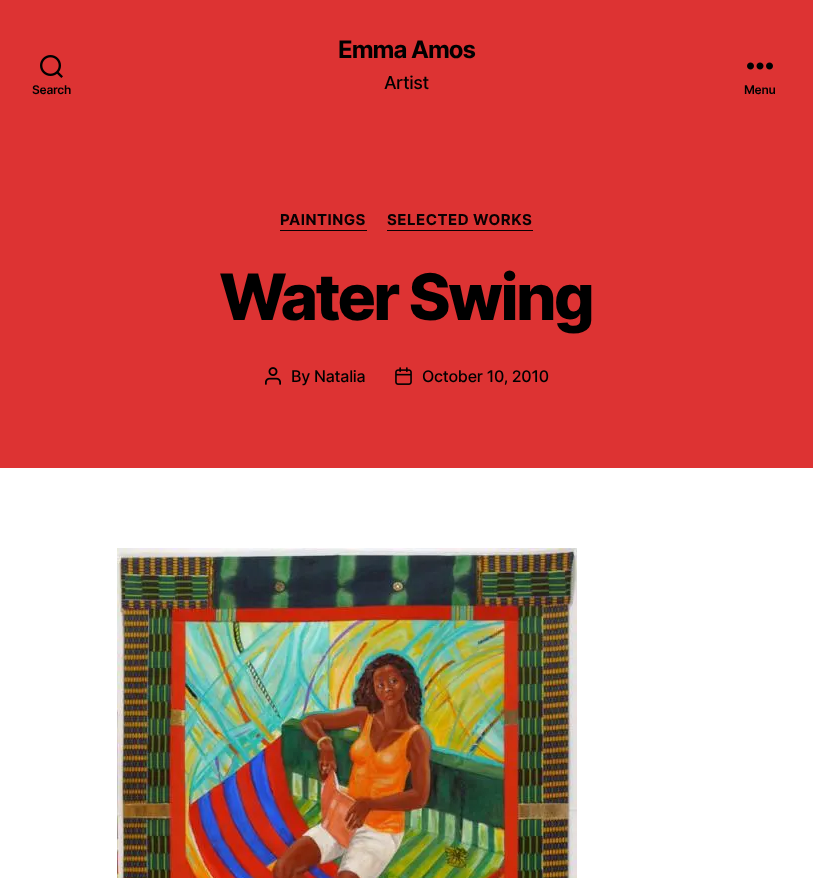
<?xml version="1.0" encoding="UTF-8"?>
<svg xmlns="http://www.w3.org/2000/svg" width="813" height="878">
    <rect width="100%" height="100%" fill="#FFFFFF"/>
    <rect x="0" y="0" width="813" height="468" fill="#DD3333"/>
    <image x="40" y="55" width="23" height="23" href="img_01.png"/>
    <text x="32" y="94" font-family="Inter" font-size="12" font-weight="600" letter-spacing="-0.25" fill="#000000">Search</text>
    <text x="338" y="58" font-family="Inter" font-size="24" font-weight="700" letter-spacing="-1" fill="#000000">Emma Amos</text>
    <text x="384" y="89" font-family="Inter" font-size="18" font-weight="500" letter-spacing="-0.5" fill="#000000">Artist</text>
    <image x="747" y="62" width="26" height="8" href="img_02.png"/>
    <text x="744" y="94" font-family="Inter" font-size="12" font-weight="600" letter-spacing="-0.25" fill="#000000">Menu</text>
    <rect x="280" y="230" width="87" height="1" fill="#0A0002"/>
    <text x="280" y="225" font-family="Inter" font-size="15" font-weight="700" letter-spacing="0.5" fill="#0A0002">PAINTINGS</text>
    <rect x="387" y="230" width="146" height="1" fill="#0A0002"/>
    <text x="387" y="225" font-family="Inter" font-size="15" font-weight="700" letter-spacing="0.5" fill="#0A0002">SELECTED WORKS</text>
    <text x="219" y="320" font-family="Inter" font-size="64" font-weight="800" letter-spacing="-2.75" fill="#000000">Water Swing</text>
    <image x="265" y="367" width="16" height="18" href="img_03.png"/>
    <text x="291" y="382" font-family="Inter" font-size="16" font-weight="500" letter-spacing="-0.25" fill="#000000">By Natalia</text>
    <image x="395" y="367" width="17" height="18" href="img_04.png"/>
    <text x="422" y="382" font-family="Inter" font-size="16" font-weight="500" letter-spacing="-0.25" fill="#000000">October 10, 2010</text>
    <image x="117" y="548" width="460" height="330" href="img_05.png"/>
</svg>
